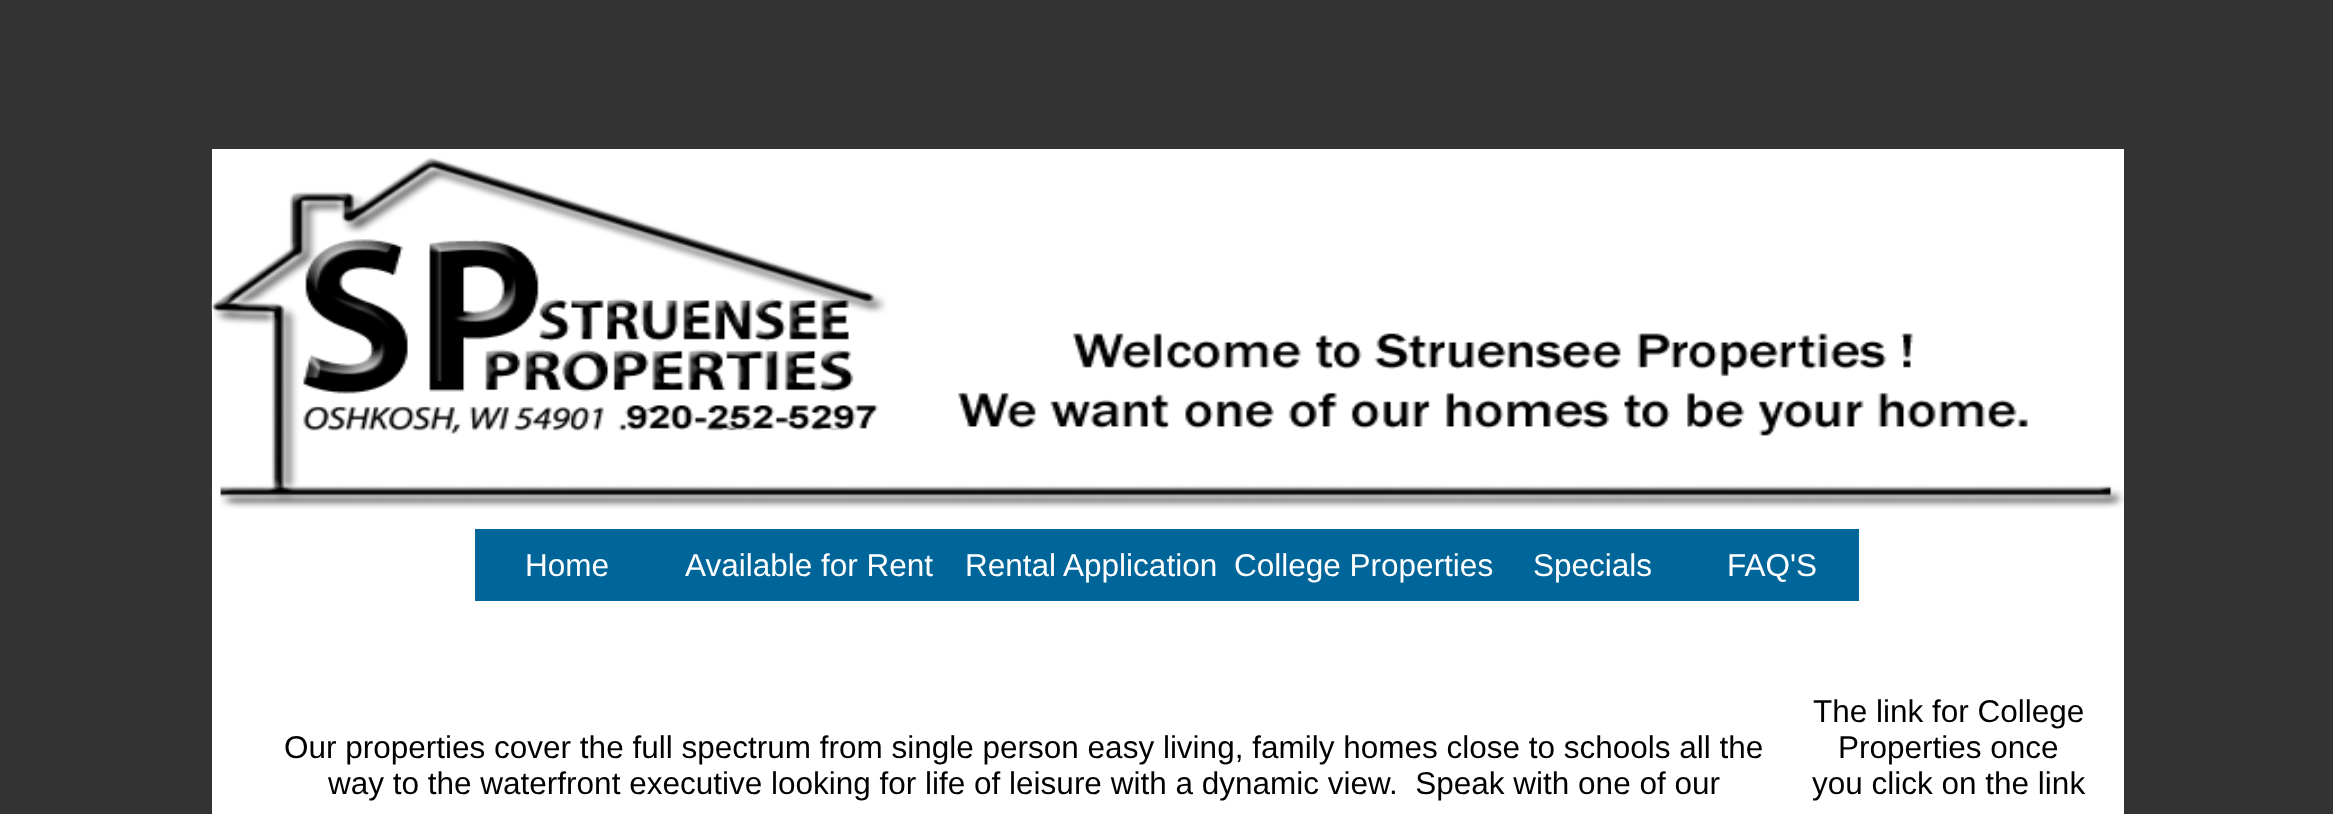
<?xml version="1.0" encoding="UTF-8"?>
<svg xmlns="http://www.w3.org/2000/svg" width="2333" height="814">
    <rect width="100%" height="100%" fill="#333333"/>
    <rect x="212" y="149" width="1912" height="665" fill="#FFFFFF"/>
    <image x="211" y="157" width="1913" height="352" href="img_01.png"/>
    <rect x="475" y="529" width="1384" height="72" fill="#006699"/>
    <text x="525" y="576" font-family="Liberation Sans" font-size="31.5" fill="#FFFFFF">Home</text>
    <text x="685" y="576" font-family="Liberation Sans" font-size="31.5" fill="#FFFFFF">Available for Rent</text>
    <text x="965" y="576" font-family="Liberation Sans" font-size="31.5" fill="#FFFFFF">Rental Application</text>
    <text x="1234" y="576" font-family="Liberation Sans" font-size="31.5" fill="#FFFFFF">College Properties</text>
    <text x="1533" y="576" font-family="Liberation Sans" font-size="31.5" fill="#FFFFFF">Specials</text>
    <text x="1727" y="576" font-family="Liberation Sans" font-size="31.5" fill="#FFFFFF">FAQ'S</text>
    <text x="284" y="758" font-family="Liberation Sans" font-size="31.5" fill="#000000">Our properties cover the full spectrum from single person easy living, family homes close to schools all the</text>
    <text x="328" y="794" font-family="Liberation Sans" font-size="31.5" fill="#000000" xml:space="preserve">way to the waterfront executive looking for life of leisure with a dynamic view.  Speak with one of our</text>
    <text x="1813" y="722" font-family="Liberation Sans" font-size="31.5" fill="#000000">The link for College</text>
    <text x="1838" y="758" font-family="Liberation Sans" font-size="31.5" fill="#000000">Properties once</text>
    <text x="1812" y="794" font-family="Liberation Sans" font-size="31.5" fill="#000000">you click on the link</text>
</svg>
